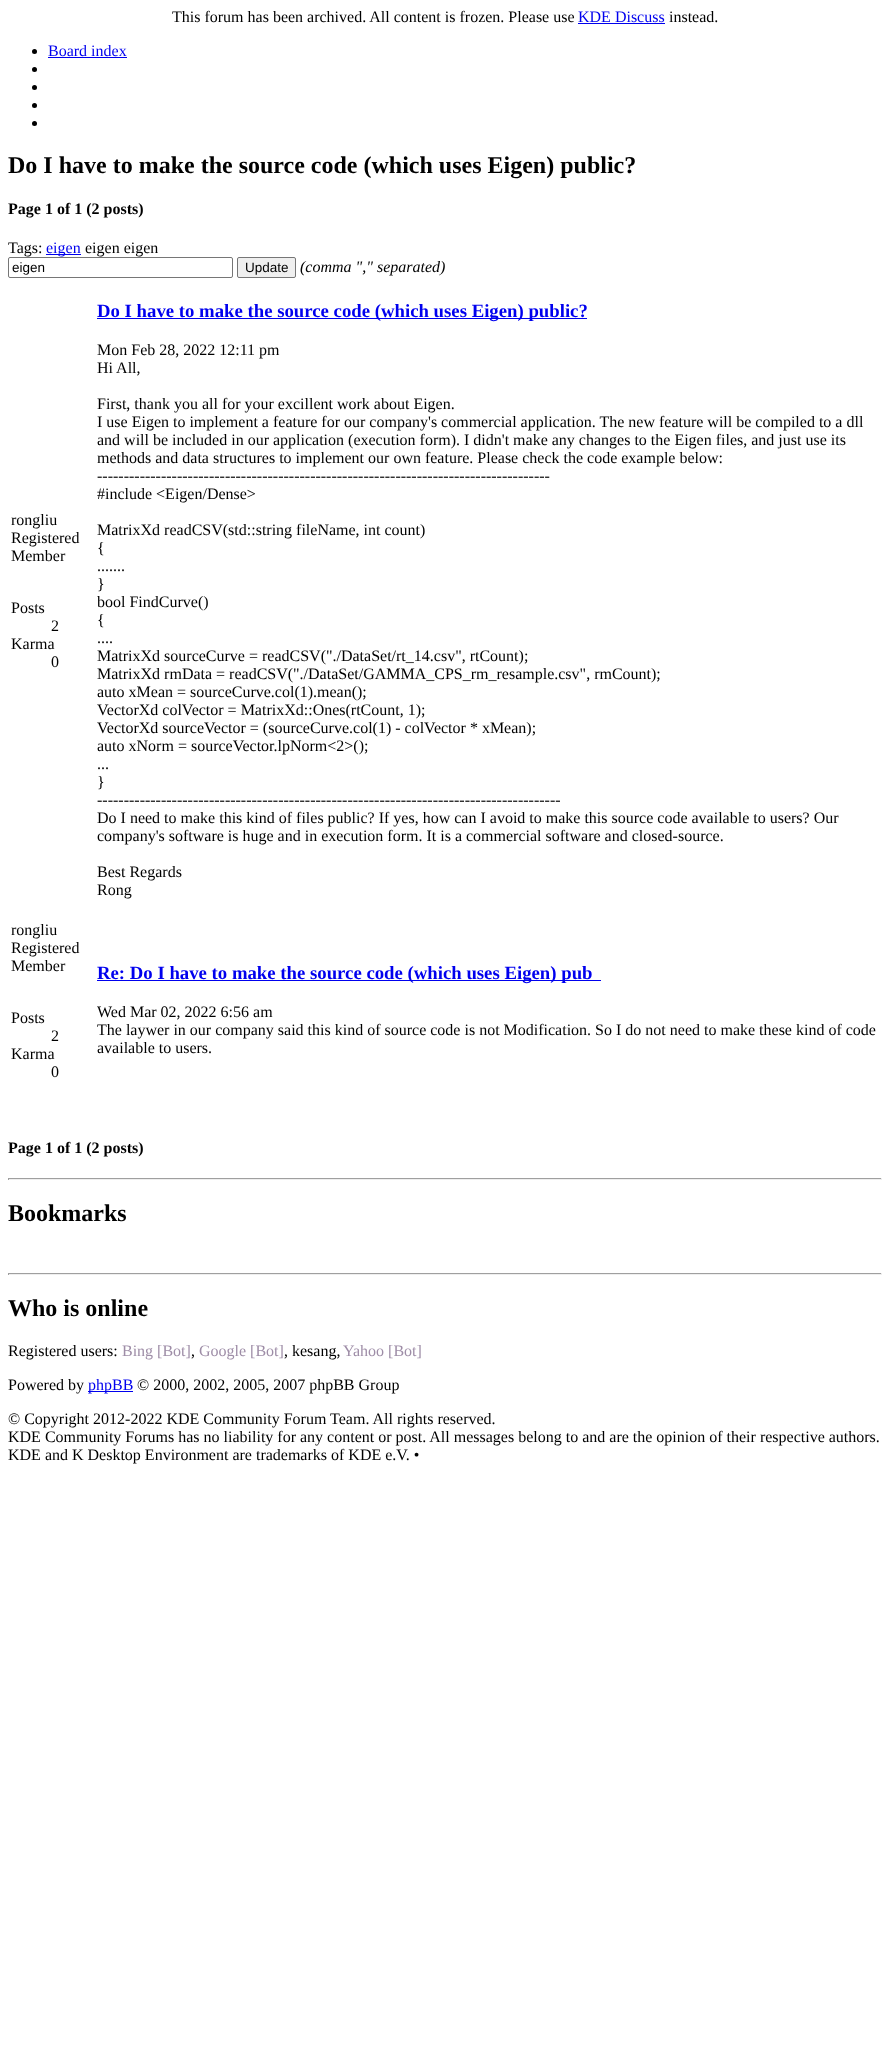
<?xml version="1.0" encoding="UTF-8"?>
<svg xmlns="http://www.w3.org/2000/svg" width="890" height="2048">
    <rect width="100%" height="100%" fill="#FFFFFF"/>
    <text x="172" y="22" font-family="Liberation Serif" font-size="16" fill="#000000">This forum has been archived. All content is frozen. Please use</text>
    <text x="578" y="22" font-family="Liberation Serif" font-size="16" fill="#0000EE">KDE Discuss</text>
    <rect x="578" y="23" width="87" height="1" fill="#0000EE"/>
    <text x="669" y="22" font-family="Liberation Serif" font-size="16" fill="#000000">instead.</text>
    <circle cx="34.5" cy="51.5" r="2.5" fill="#000000"/>
    <text x="48" y="56" font-family="Liberation Serif" font-size="16" fill="#0000EE">Board index</text>
    <rect x="48" y="57" width="79" height="1" fill="#0000EE"/>
    <circle cx="34.5" cy="69.5" r="2.5" fill="#000000"/>
    <circle cx="34.5" cy="87.5" r="2.5" fill="#000000"/>
    <circle cx="34.5" cy="105.5" r="2.5" fill="#000000"/>
    <circle cx="34.5" cy="123.5" r="2.5" fill="#000000"/>
    <text x="8" y="173" font-family="Liberation Serif" font-size="24" font-weight="700" fill="#000000">Do I have to make the source code (which uses Eigen) public?</text>
    <text x="8" y="214" font-family="Liberation Serif" font-size="16" font-weight="700" fill="#000000">Page 1 of 1 (2 posts)</text>
    <text x="8" y="253" font-family="Liberation Serif" font-size="16" fill="#000000">Tags:</text>
    <rect x="46" y="254" width="35" height="1" fill="#0000EE"/>
    <text x="46" y="253" font-family="Liberation Serif" font-size="16" fill="#0000EE">eigen</text>
    <text x="85" y="253" font-family="Liberation Serif" font-size="16" fill="#000000">eigen eigen</text>
    <rect x="8.5" y="257.5" width="224" height="20" rx="1.5" fill="none" stroke="#767676"/>
    <text x="12" y="272" font-family="Liberation Sans" font-size="13.5" fill="#000000">eigen</text>
    <rect x="237.5" y="257.5" width="58" height="20" rx="1.5" fill="#EFEFEF" stroke="#767676"/>
    <text x="245" y="272" font-family="Liberation Sans" font-size="13.5" fill="#000000">Update</text>
    <text x="300" y="272" font-family="Liberation Serif" font-size="16" font-style="italic" fill="#000000">(comma "," separated)</text>
    <text font-family="Liberation Serif" font-size="16" fill="#000000">
        <tspan x="11" y="525">rongliu</tspan>
        <tspan x="11" y="543">Registered</tspan>
        <tspan x="11" y="561">Member</tspan>
    </text>
    <text x="11" y="613" font-family="Liberation Serif" font-size="16" fill="#000000">Posts</text>
    <text x="51" y="631" font-family="Liberation Serif" font-size="16" fill="#000000">2</text>
    <text x="11" y="649" font-family="Liberation Serif" font-size="16" fill="#000000">Karma</text>
    <text x="51" y="667" font-family="Liberation Serif" font-size="16" fill="#000000">0</text>
    <rect x="97" y="318" width="490" height="1" fill="#0000EE"/>
    <text x="97" y="317" font-family="Liberation Serif" font-size="18.75" font-weight="700" fill="#0000EE">Do I have to make the source code (which uses Eigen) public?</text>
    <text font-family="Liberation Serif" font-size="16" fill="#000000">
        <tspan x="97" y="355">Mon Feb 28, 2022 12:11 pm</tspan>
        <tspan x="97" y="373">Hi All,</tspan>
    </text>
    <text font-family="Liberation Serif" font-size="16" fill="#000000">
        <tspan x="97" y="409">First, thank you all for your excillent work about Eigen.</tspan>
        <tspan x="97" y="427">I use Eigen to implement a feature for our company's commercial application. The new feature will be compiled to a dll</tspan>
        <tspan x="97" y="445">and will be included in our application (execution form). I didn't make any changes to the Eigen files, and just use its</tspan>
        <tspan x="97" y="463">methods and data structures to implement our own feature. Please check the code example below:</tspan>
        <tspan x="97" y="481">-------------------------------------------------------------------------------------</tspan>
        <tspan x="97" y="499">#include &lt;Eigen/Dense&gt;</tspan>
    </text>
    <text font-family="Liberation Serif" font-size="16" fill="#000000">
        <tspan x="97" y="535">MatrixXd readCSV(std::string fileName, int count)</tspan>
        <tspan x="97" y="553">{</tspan>
        <tspan x="97" y="571">.......</tspan>
        <tspan x="97" y="589">}</tspan>
        <tspan x="97" y="607">bool FindCurve()</tspan>
        <tspan x="97" y="625">{</tspan>
        <tspan x="97" y="643">....</tspan>
        <tspan x="97" y="661">MatrixXd sourceCurve = readCSV("./DataSet/rt_14.csv", rtCount);</tspan>
        <tspan x="97" y="679">MatrixXd rmData = readCSV("./DataSet/GAMMA_CPS_rm_resample.csv", rmCount);</tspan>
        <tspan x="97" y="697">auto xMean = sourceCurve.col(1).mean();</tspan>
        <tspan x="97" y="715">VectorXd colVector = MatrixXd::Ones(rtCount, 1);</tspan>
        <tspan x="97" y="733">VectorXd sourceVector = (sourceCurve.col(1) - colVector * xMean);</tspan>
        <tspan x="97" y="751">auto xNorm = sourceVector.lpNorm&lt;2&gt;();</tspan>
        <tspan x="97" y="769">...</tspan>
        <tspan x="97" y="787">}</tspan>
        <tspan x="97" y="805">---------------------------------------------------------------------------------------</tspan>
        <tspan x="97" y="823">Do I need to make this kind of files public? If yes, how can I avoid to make this source code available to users? Our</tspan>
        <tspan x="97" y="841">company's software is huge and in execution form. It is a commercial software and closed-source.</tspan>
    </text>
    <text font-family="Liberation Serif" font-size="16" fill="#000000">
        <tspan x="97" y="877">Best Regards</tspan>
        <tspan x="97" y="895">Rong</tspan>
    </text>
    <text font-family="Liberation Serif" font-size="16" fill="#000000">
        <tspan x="11" y="935">rongliu</tspan>
        <tspan x="11" y="953">Registered</tspan>
        <tspan x="11" y="971">Member</tspan>
    </text>
    <text x="11" y="1023" font-family="Liberation Serif" font-size="16" fill="#000000">Posts</text>
    <text x="51" y="1041" font-family="Liberation Serif" font-size="16" fill="#000000">2</text>
    <text x="11" y="1059" font-family="Liberation Serif" font-size="16" fill="#000000">Karma</text>
    <text x="51" y="1077" font-family="Liberation Serif" font-size="16" fill="#000000">0</text>
    <rect x="97" y="980" width="504" height="1" fill="#0000EE"/>
    <text x="97" y="979" font-family="Liberation Serif" font-size="18.75" font-weight="700" fill="#0000EE">Re: Do I have to make the source code (which uses Eigen) pub</text>
    <text font-family="Liberation Serif" font-size="16" fill="#000000">
        <tspan x="97" y="1017">Wed Mar 02, 2022 6:56 am</tspan>
        <tspan x="97" y="1035">The laywer in our company said this kind of source code is not Modification. So I do not need to make these kind of code</tspan>
        <tspan x="97" y="1053">available to users.</tspan>
    </text>
    <text x="8" y="1153" font-family="Liberation Serif" font-size="16" font-weight="700" fill="#000000">Page 1 of 1 (2 posts)</text>
    <rect x="8" y="1178" width="874" height="1" fill="#9F9F9F"/>
    <rect x="881" y="1178" width="1" height="2" fill="#EEEEEE"/>
    <rect x="8" y="1179" width="874" height="1" fill="#EEEEEE"/>
    <rect x="8" y="1178" width="1" height="2" fill="#9F9F9F"/>
    <text x="8" y="1221" font-family="Liberation Serif" font-size="24" font-weight="700" fill="#000000">Bookmarks</text>
    <rect x="8" y="1273" width="874" height="1" fill="#9F9F9F"/>
    <rect x="881" y="1273" width="1" height="2" fill="#EEEEEE"/>
    <rect x="8" y="1274" width="874" height="1" fill="#EEEEEE"/>
    <rect x="8" y="1273" width="1" height="2" fill="#9F9F9F"/>
    <text x="8" y="1316" font-family="Liberation Serif" font-size="24" font-weight="700" fill="#000000">Who is online</text>
    <text x="8" y="1356" font-family="Liberation Serif" font-size="16" fill="#000000">Registered users:</text>
    <text x="122" y="1356" font-family="Liberation Serif" font-size="16" fill="#9E8DA7">Bing [Bot]</text>
    <text x="191" y="1356" font-family="Liberation Serif" font-size="16" fill="#000000">,</text>
    <text x="199" y="1356" font-family="Liberation Serif" font-size="16" fill="#9E8DA7">Google [Bot]</text>
    <text x="284" y="1356" font-family="Liberation Serif" font-size="16" fill="#000000">, kesang,</text>
    <text x="343" y="1356" font-family="Liberation Serif" font-size="16" fill="#9E8DA7">Yahoo [Bot]</text>
    <text x="8" y="1390" font-family="Liberation Serif" font-size="16" fill="#000000">Powered by</text>
    <rect x="88" y="1391" width="45" height="1" fill="#0000EE"/>
    <text x="88" y="1390" font-family="Liberation Serif" font-size="16" fill="#0000EE">phpBB</text>
    <text x="137" y="1390" font-family="Liberation Serif" font-size="16" fill="#000000">© 2000, 2002, 2005, 2007 phpBB Group</text>
    <text font-family="Liberation Serif" font-size="16" fill="#000000">
        <tspan x="8" y="1424">© Copyright 2012-2022 KDE Community Forum Team. All rights reserved.</tspan>
        <tspan x="8" y="1442">KDE Community Forums has no liability for any content or post. All messages belong to and are the opinion of their respective authors.</tspan>
        <tspan x="8" y="1460">KDE and K Desktop Environment are trademarks of KDE e.V. •</tspan>
    </text>
</svg>
